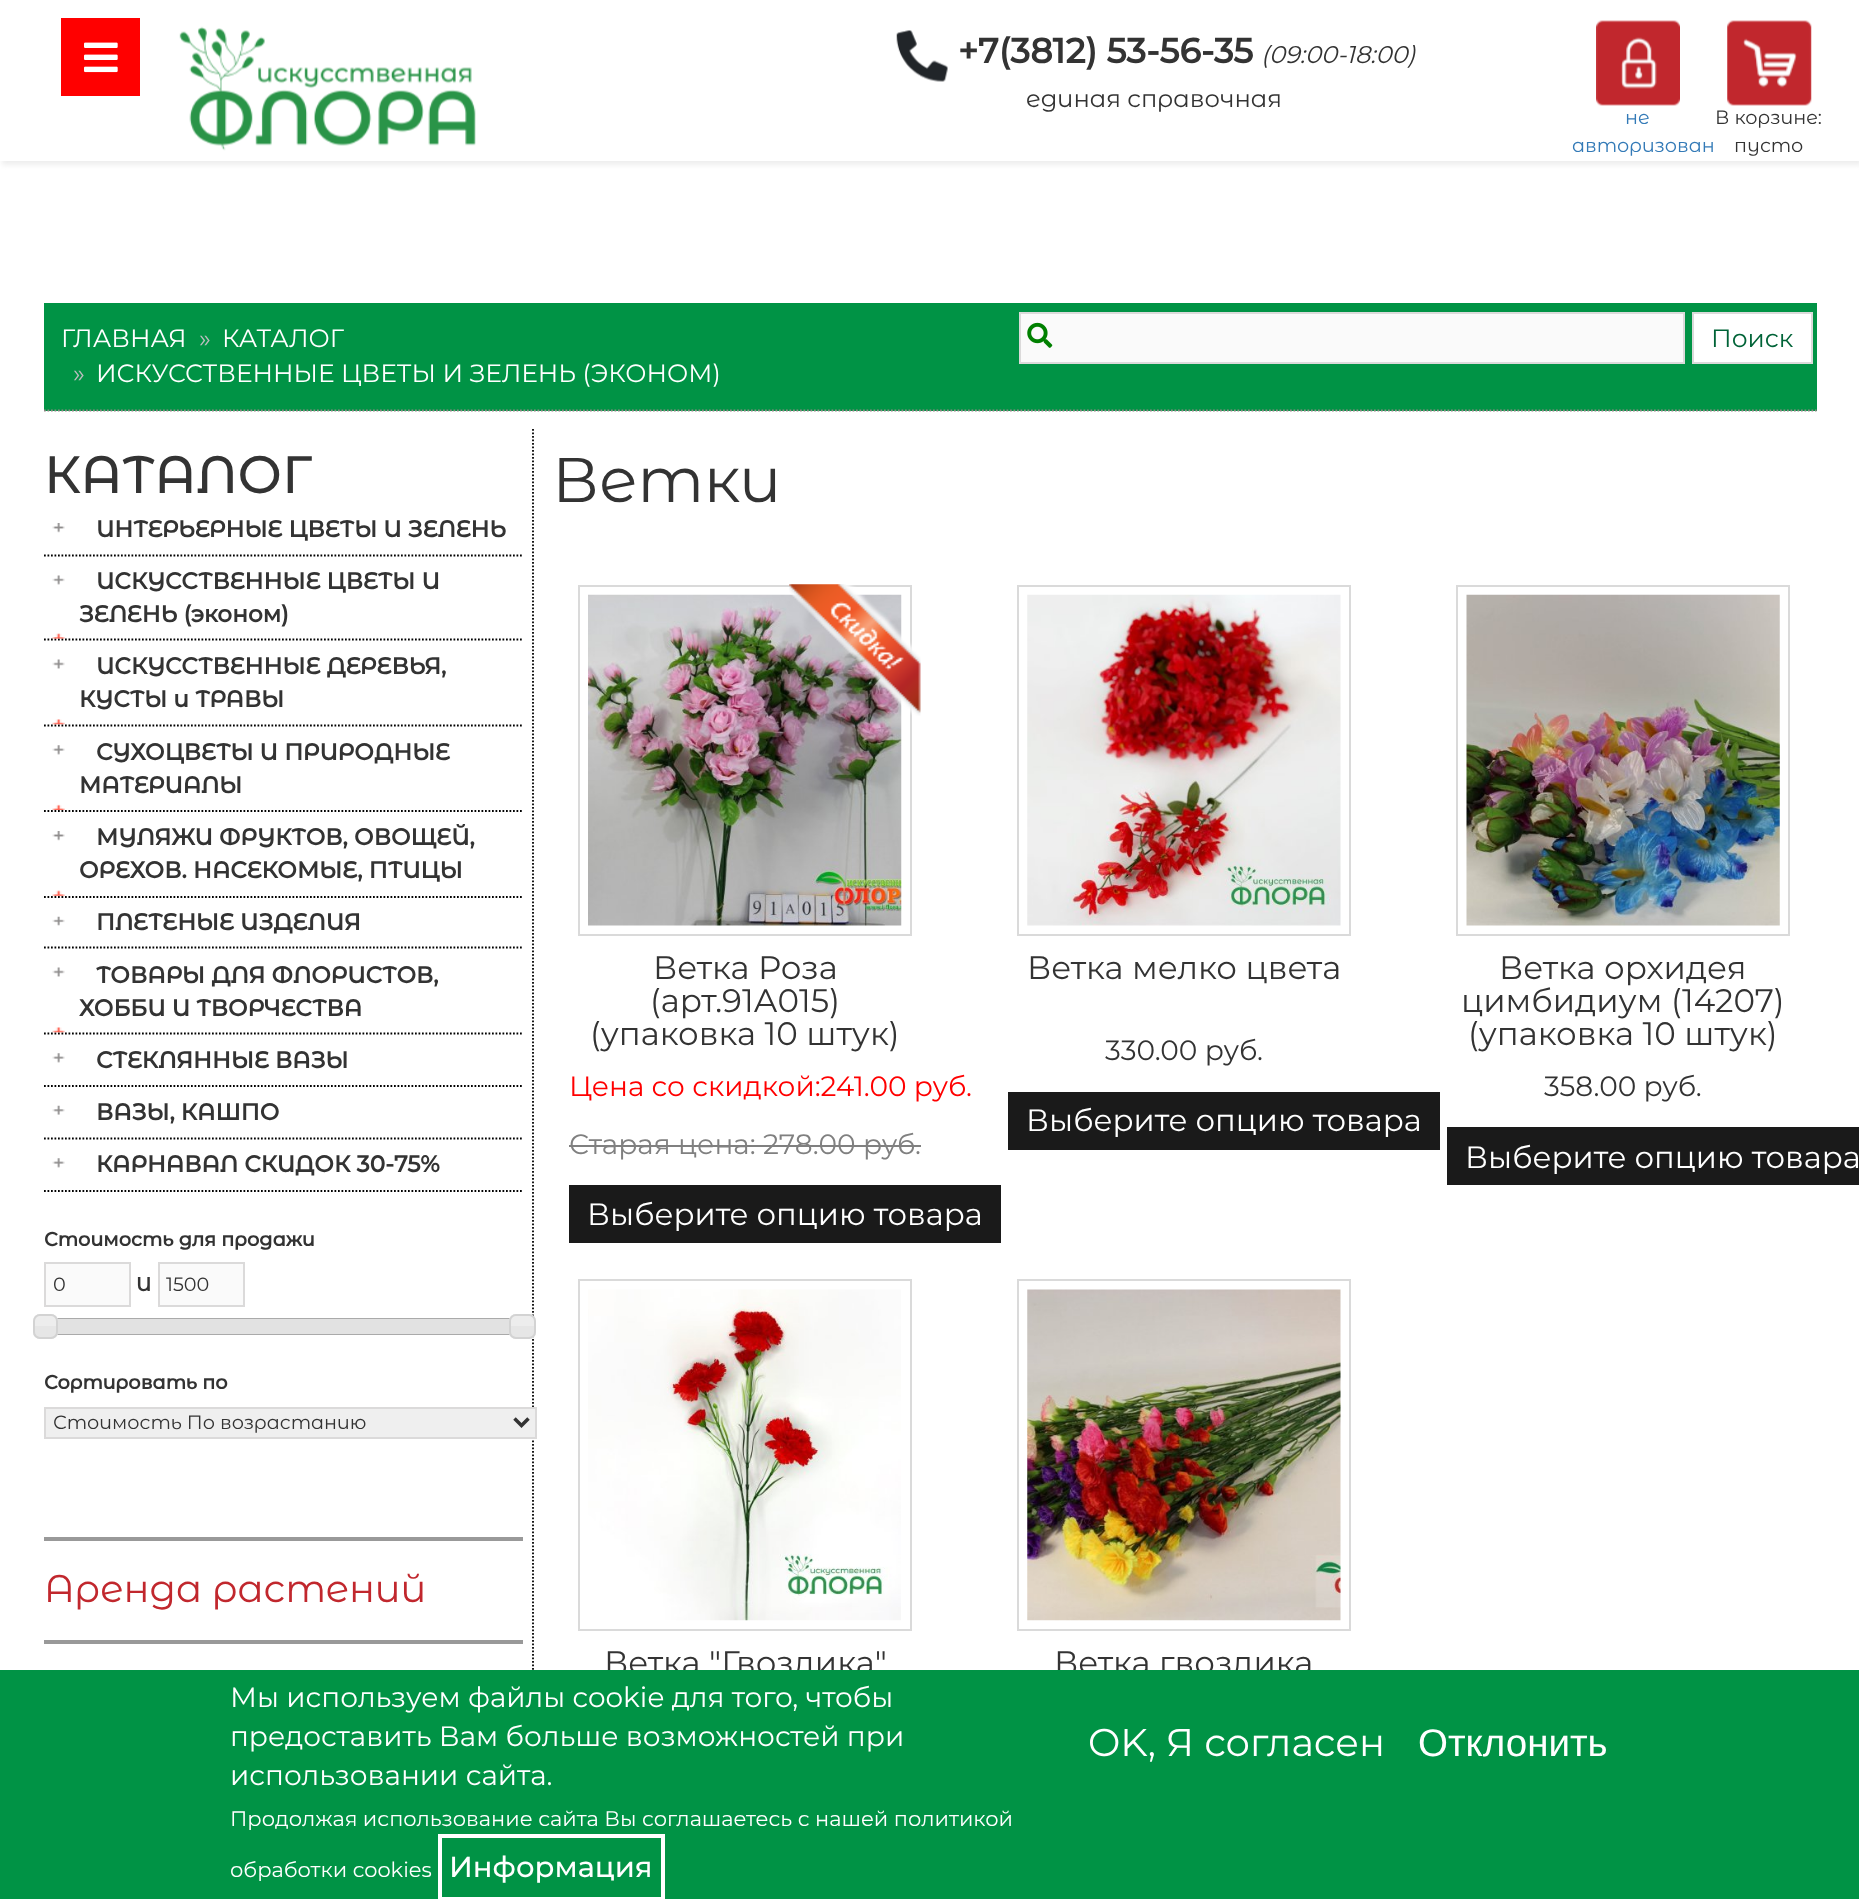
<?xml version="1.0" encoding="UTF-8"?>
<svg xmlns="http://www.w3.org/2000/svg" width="1859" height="1899">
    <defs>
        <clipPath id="clip1"><rect x="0" y="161" width="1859" height="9"/></clipPath>
        <filter id="blur1" x="-50%" y="-200%" width="200%" height="500%"><feGaussianBlur stdDeviation="2.5"/></filter>
    </defs>
    <rect width="100%" height="100%" fill="#FFFFFF"/>
    <g clip-path="url(#clip1)">
        <rect x="2" y="4" width="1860" height="161" fill="#EEEEEE" filter="url(#blur1)"/>
    </g>
    <rect x="61" y="18" width="79" height="78" fill="#FF0000"/>
    <image x="84" y="42" width="34" height="31" href="img_01.png"/>
    <image x="179" y="26" width="297" height="125" href="img_02.png"/>
    <image x="896" y="30" width="52" height="52" href="img_03.png"/>
    <text x="958" y="63" font-family="Montserrat Alternates" font-size="34.75" font-weight="700" fill="#333333">+7(3812) 53-56-35</text>
    <text x="1261" y="63" font-family="Montserrat Alternates" font-size="24.25" font-style="italic" fill="#333333">(09:00-18:00)</text>
    <text x="1026" y="107" font-family="Montserrat Alternates" font-size="24.25" fill="#333333">единая справочная</text>
    <image x="1596" y="20" width="84" height="86" href="img_04.png"/>
    <text x="1625" y="124" font-family="Montserrat Alternates" font-size="19.25" fill="#337AB7">не</text>
    <text x="1572" y="152" font-family="Montserrat Alternates" font-size="19.25" fill="#337AB7">авторизован</text>
    <image x="1727" y="20" width="85" height="86" href="img_05.png"/>
    <text x="1715" y="124" font-family="Montserrat Alternates" font-size="19.25" fill="#333333">В корзине:</text>
    <text x="1734" y="152" font-family="Montserrat Alternates" font-size="19.25" fill="#333333">пусто</text>
    <rect x="44" y="303" width="1773" height="108" fill="#009345"/>
    <path d="M 44 410.5 H 1816.5" fill="none" stroke="#8F8683" stroke-width="1.8" stroke-dasharray="1.75 1.75"/>
    <text x="61" y="347" font-family="Montserrat" font-size="25" fill="#FFFFFF">ГЛАВНАЯ</text>
    <text x="199" y="347" font-family="Montserrat" font-size="25" fill="#BBBDBF">»</text>
    <text x="222" y="347" font-family="Montserrat" font-size="25" fill="#FFFFFF">КАТАЛОГ</text>
    <text x="73" y="382" font-family="Montserrat" font-size="25" fill="#BBBDBF">»</text>
    <text x="96" y="382" font-family="Montserrat" font-size="25" fill="#FFFFFF">ИСКУССТВЕННЫЕ ЦВЕТЫ И ЗЕЛЕНЬ (ЭКОНОМ)</text>
    <rect x="1020" y="313" width="664" height="50" fill="#FAFAFA" stroke="#DBDADA" stroke-width="2"/>
    <image x="1027" y="322" width="26" height="26" href="img_06.png"/>
    <rect x="1693" y="313" width="119" height="50" fill="#FFFFFF" stroke="#DBDADA" stroke-width="2"/>
    <text x="1711" y="347" font-family="Montserrat" font-size="25" fill="#006337">Поиск</text>
    <text x="44" y="493" font-family="Montserrat Alternates" font-size="52.5" font-weight="500" fill="#333333">КАТАЛОГ</text>
    <path d="M 44 555.5 H 523" fill="none" stroke="#000000" stroke-width="1.8" stroke-dasharray="1.75 1.75"/>
    <image x="52" y="523" width="13" height="10" href="img_07.png"/>
    <text x="96" y="537" font-family="Montserrat Alternates" font-size="23.1" font-weight="700" fill="#333333">ИНТЕРЬЕРНЫЕ ЦВЕТЫ И ЗЕЛЕНЬ</text>
    <path d="M 44 639.5 H 523" fill="none" stroke="#000000" stroke-width="1.8" stroke-dasharray="1.75 1.75"/>
    <image x="52" y="575" width="13" height="64" href="img_08.png"/>
    <text x="96" y="589" font-family="Montserrat Alternates" font-size="23.1" font-weight="700" fill="#333333">ИСКУССТВЕННЫЕ ЦВЕТЫ И</text>
    <text x="79" y="622" font-family="Montserrat Alternates" font-size="23.1" font-weight="700" fill="#333333">ЗЕЛЕНЬ (эконом)</text>
    <path d="M 44 725.5 H 523" fill="none" stroke="#000000" stroke-width="1.8" stroke-dasharray="1.75 1.75"/>
    <image x="52" y="659" width="13" height="66" href="img_09.png"/>
    <text x="96" y="674" font-family="Montserrat Alternates" font-size="23.1" font-weight="700" fill="#333333">ИСКУССТВЕННЫЕ ДЕРЕВЬЯ,</text>
    <text x="79" y="707" font-family="Montserrat Alternates" font-size="23.1" font-weight="700" fill="#333333">КУСТЫ и ТРАВЫ</text>
    <path d="M 44 811 H 523" fill="none" stroke="#000000" stroke-width="1.8" stroke-dasharray="1.75 1.75"/>
    <image x="52" y="745" width="13" height="65" href="img_10.png"/>
    <text x="96" y="760" font-family="Montserrat Alternates" font-size="23.1" font-weight="700" fill="#333333">СУХОЦВЕТЫ И ПРИРОДНЫЕ</text>
    <text x="79" y="793" font-family="Montserrat Alternates" font-size="23.1" font-weight="700" fill="#333333">МАТЕРИАЛЫ</text>
    <path d="M 44 897 H 523" fill="none" stroke="#000000" stroke-width="1.8" stroke-dasharray="1.75 1.75"/>
    <image x="52" y="831" width="13" height="65" href="img_11.png"/>
    <text x="96" y="845" font-family="Montserrat Alternates" font-size="23.1" font-weight="700" fill="#333333">МУЛЯЖИ ФРУКТОВ, ОВОЩЕЙ,</text>
    <text x="79" y="878" font-family="Montserrat Alternates" font-size="23.1" font-weight="700" fill="#333333">ОРЕХОВ. НАСЕКОМЫЕ, ПТИЦЫ</text>
    <path d="M 44 947.5 H 523" fill="none" stroke="#000000" stroke-width="1.8" stroke-dasharray="1.75 1.75"/>
    <image x="52" y="916" width="13" height="10" href="img_12.png"/>
    <text x="96" y="930" font-family="Montserrat Alternates" font-size="23.1" font-weight="700" fill="#333333">ПЛЕТЕНЫЕ ИЗДЕЛИЯ</text>
    <path d="M 44 1033.5 H 523" fill="none" stroke="#000000" stroke-width="1.8" stroke-dasharray="1.75 1.75"/>
    <image x="52" y="967" width="13" height="66" href="img_09.png"/>
    <text x="96" y="983" font-family="Montserrat Alternates" font-size="23.1" font-weight="700" fill="#333333">ТОВАРЫ ДЛЯ ФЛОРИСТОВ,</text>
    <text x="79" y="1016" font-family="Montserrat Alternates" font-size="23.1" font-weight="700" fill="#333333">ХОББИ И ТВОРЧЕСТВА</text>
    <path d="M 44 1086 H 523" fill="none" stroke="#000000" stroke-width="1.8" stroke-dasharray="1.75 1.75"/>
    <image x="52" y="1053" width="13" height="10" href="img_13.png"/>
    <text x="96" y="1068" font-family="Montserrat Alternates" font-size="23.1" font-weight="700" fill="#333333">СТЕКЛЯННЫЕ ВАЗЫ</text>
    <path d="M 44 1138.5 H 523" fill="none" stroke="#000000" stroke-width="1.8" stroke-dasharray="1.75 1.75"/>
    <image x="52" y="1105" width="13" height="10" href="img_14.png"/>
    <text x="96" y="1120" font-family="Montserrat Alternates" font-size="23.1" font-weight="700" fill="#333333">ВАЗЫ, КАШПО</text>
    <path d="M 44 1191 H 523" fill="none" stroke="#000000" stroke-width="1.8" stroke-dasharray="1.75 1.75"/>
    <image x="52" y="1158" width="13" height="10" href="img_13.png"/>
    <text x="96" y="1172" font-family="Montserrat Alternates" font-size="23.1" font-weight="700" fill="#333333">КАРНАВАЛ СКИДОК 30-75%</text>
    <text x="44" y="1246" font-family="Montserrat Alternates" font-size="19.25" font-weight="700" fill="#333333">Стоимость для продажи</text>
    <rect x="45" y="1263" width="85" height="43" fill="#FAFAFA" stroke="#DBDADA" stroke-width="2"/>
    <text x="53" y="1291" font-family="Montserrat" font-size="19.25" fill="#333333">0</text>
    <text x="136" y="1291" font-family="Montserrat Alternates" font-size="19.25" font-weight="700" fill="#333333">И</text>
    <rect x="159" y="1263" width="85" height="43" fill="#FAFAFA" stroke="#DBDADA" stroke-width="2"/>
    <text x="166" y="1291" font-family="Montserrat" font-size="19.25" fill="#333333">1500</text>
    <rect x="45" y="1319" width="477" height="15" fill="none" stroke="#AAAAAA" stroke-width="2"/>
    <rect x="57" y="1319" width="453" height="15" fill="#E2E2E2"/>
    <rect x="33" y="1314" width="25" height="25" rx="7" fill="#E6E6E6"/>
    <image x="34" y="1314" width="24" height="12" href="img_15.png"/>
    <rect x="34" y="1315" width="23" height="23" rx="6" fill="none" stroke="#D3D3D3" stroke-width="2"/>
    <path d="M 533 429 V 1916" fill="none" stroke="#000000" stroke-width="1.8" stroke-dasharray="1.75 1.75"/>
    <rect x="509" y="1314" width="27" height="25" rx="7" fill="#E6E6E6"/>
    <image x="509" y="1314" width="26" height="12" href="img_16.png"/>
    <rect x="510" y="1315" width="25" height="23" rx="6" fill="none" stroke="#D3D3D3" stroke-width="2"/>
    <text x="44" y="1389" font-family="Montserrat Alternates" font-size="19.25" font-weight="700" fill="#333333">Сортировать по</text>
    <rect x="45" y="1408" width="491" height="30" fill="#EFEFEF" stroke="#DBDADA" stroke-width="2"/>
    <path d="M 514.5 1418.5 L 521.5 1425.5 L 528.5 1418.5" fill="none" stroke="#333333" stroke-width="3.5"/>
    <text x="53" y="1429" font-family="Montserrat Alternates" font-size="19.25" fill="#333333">Стоимость По возрастанию</text>
    <rect x="44" y="1537" width="479" height="4" fill="#999999"/>
    <text x="44" y="1602" font-family="Montserrat Alternates" font-size="38.5" fill="#C1272D">Аренда растений</text>
    <rect x="44" y="1640" width="479" height="4" fill="#999999"/>
    <text x="552" y="502" font-family="Montserrat Alternates" font-size="63" fill="#333333">Ветки</text>
    <rect x="579" y="586" width="332" height="349" fill="none" stroke="#DADADA" stroke-width="2"/>
    <image x="588" y="594" width="314" height="332" href="img_18.png"/>
    <image x="789" y="584" width="132" height="132" href="img_17.png"/>
    <text x="653" y="979" font-family="Montserrat" font-size="32.5" fill="#333333">Ветка Роза</text>
    <text x="650" y="1012" font-family="Montserrat" font-size="32.5" fill="#333333">(арт.91А015)</text>
    <text x="590" y="1045" font-family="Montserrat" font-size="32.5" fill="#333333">(упаковка 10 штук)</text>
    <text x="569" y="1096" font-family="Montserrat" font-size="28" fill="#FF0000">Цена со скидкой:241.00 руб.</text>
    <text x="569" y="1154" font-family="Montserrat" font-size="28" fill="#808080">Старая цена: 278.00 руб.</text>
    <rect x="569" y="1145" width="352" height="2" fill="#808080"/>
    <rect x="569" y="1185" width="432" height="58" fill="#1A1A1A"/>
    <text x="587" y="1225" font-family="Montserrat" font-size="30.75" fill="#FFFFFF">Выберите опцию товара</text>
    <rect x="1018" y="586" width="332" height="349" fill="none" stroke="#DADADA" stroke-width="2"/>
    <image x="1027" y="594" width="314" height="332" href="img_19.png"/>
    <text x="1027" y="979" font-family="Montserrat" font-size="32.5" fill="#333333">Ветка мелко цвета</text>
    <text x="1105" y="1060" font-family="Montserrat" font-size="28" fill="#333333">330.00 руб.</text>
    <rect x="1008" y="1092" width="432" height="58" fill="#1A1A1A"/>
    <text x="1026" y="1131" font-family="Montserrat" font-size="30.75" fill="#FFFFFF">Выберите опцию товара</text>
    <rect x="1457" y="586" width="332" height="349" fill="none" stroke="#DADADA" stroke-width="2"/>
    <image x="1466" y="594" width="314" height="332" href="img_20.png"/>
    <text x="1499" y="979" font-family="Montserrat" font-size="32.5" fill="#333333">Ветка орхидея</text>
    <text x="1461" y="1012" font-family="Montserrat" font-size="32.5" fill="#333333">цимбидиум (14207)</text>
    <text x="1468" y="1045" font-family="Montserrat" font-size="32.5" fill="#333333">(упаковка 10 штук)</text>
    <text x="1544" y="1096" font-family="Montserrat" font-size="28" fill="#333333">358.00 руб.</text>
    <rect x="1447" y="1127" width="412" height="58" fill="#1A1A1A"/>
    <text x="1465" y="1168" font-family="Montserrat" font-size="30.75" fill="#FFFFFF">Выберите опцию товара</text>
    <rect x="579" y="1280" width="332" height="350" fill="none" stroke="#DADADA" stroke-width="2"/>
    <image x="588" y="1289" width="313" height="332" href="img_21.png"/>
    <text x="604" y="1674" font-family="Montserrat" font-size="32.5" fill="#333333">Ветка "Гвоздика"</text>
    <rect x="1018" y="1280" width="332" height="350" fill="none" stroke="#DADADA" stroke-width="2"/>
    <image x="1027" y="1289" width="314" height="332" href="img_22.png"/>
    <text x="1054" y="1674" font-family="Montserrat" font-size="32.5" fill="#333333">Ветка гвоздика</text>
    <rect x="0" y="1670" width="1859" height="229" fill="#009345"/>
    <text font-family="Montserrat" font-size="28" fill="#FFFFFF">
        <tspan x="230" y="1707">Мы используем файлы cookie для того, чтобы</tspan>
        <tspan x="230" y="1746">предоставить Вам больше возможностей при</tspan>
        <tspan x="230" y="1785">использовании сайта.</tspan>
    </text>
    <text x="230" y="1826" font-family="Montserrat" font-size="21" fill="#FFFFFF">Продолжая использование сайта Вы соглашаетесь с нашей политикой</text>
    <text x="230" y="1877" font-family="Montserrat" font-size="21" fill="#FFFFFF">обработки cookies</text>
    <rect x="440" y="1836" width="223" height="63" fill="none" stroke="#FFFFFF" stroke-width="4"/>
    <text x="449" y="1877" font-family="Montserrat" font-size="29" font-weight="500" fill="#FFFFFF">Информация</text>
    <text x="1088" y="1756" font-family="Montserrat" font-size="38.5" fill="#FFFFFF">OK, Я согласен</text>
    <text x="1418" y="1756" font-family="Liberation Sans" font-size="38.5" fill="#FFFFFF">Отклонить</text>
</svg>
